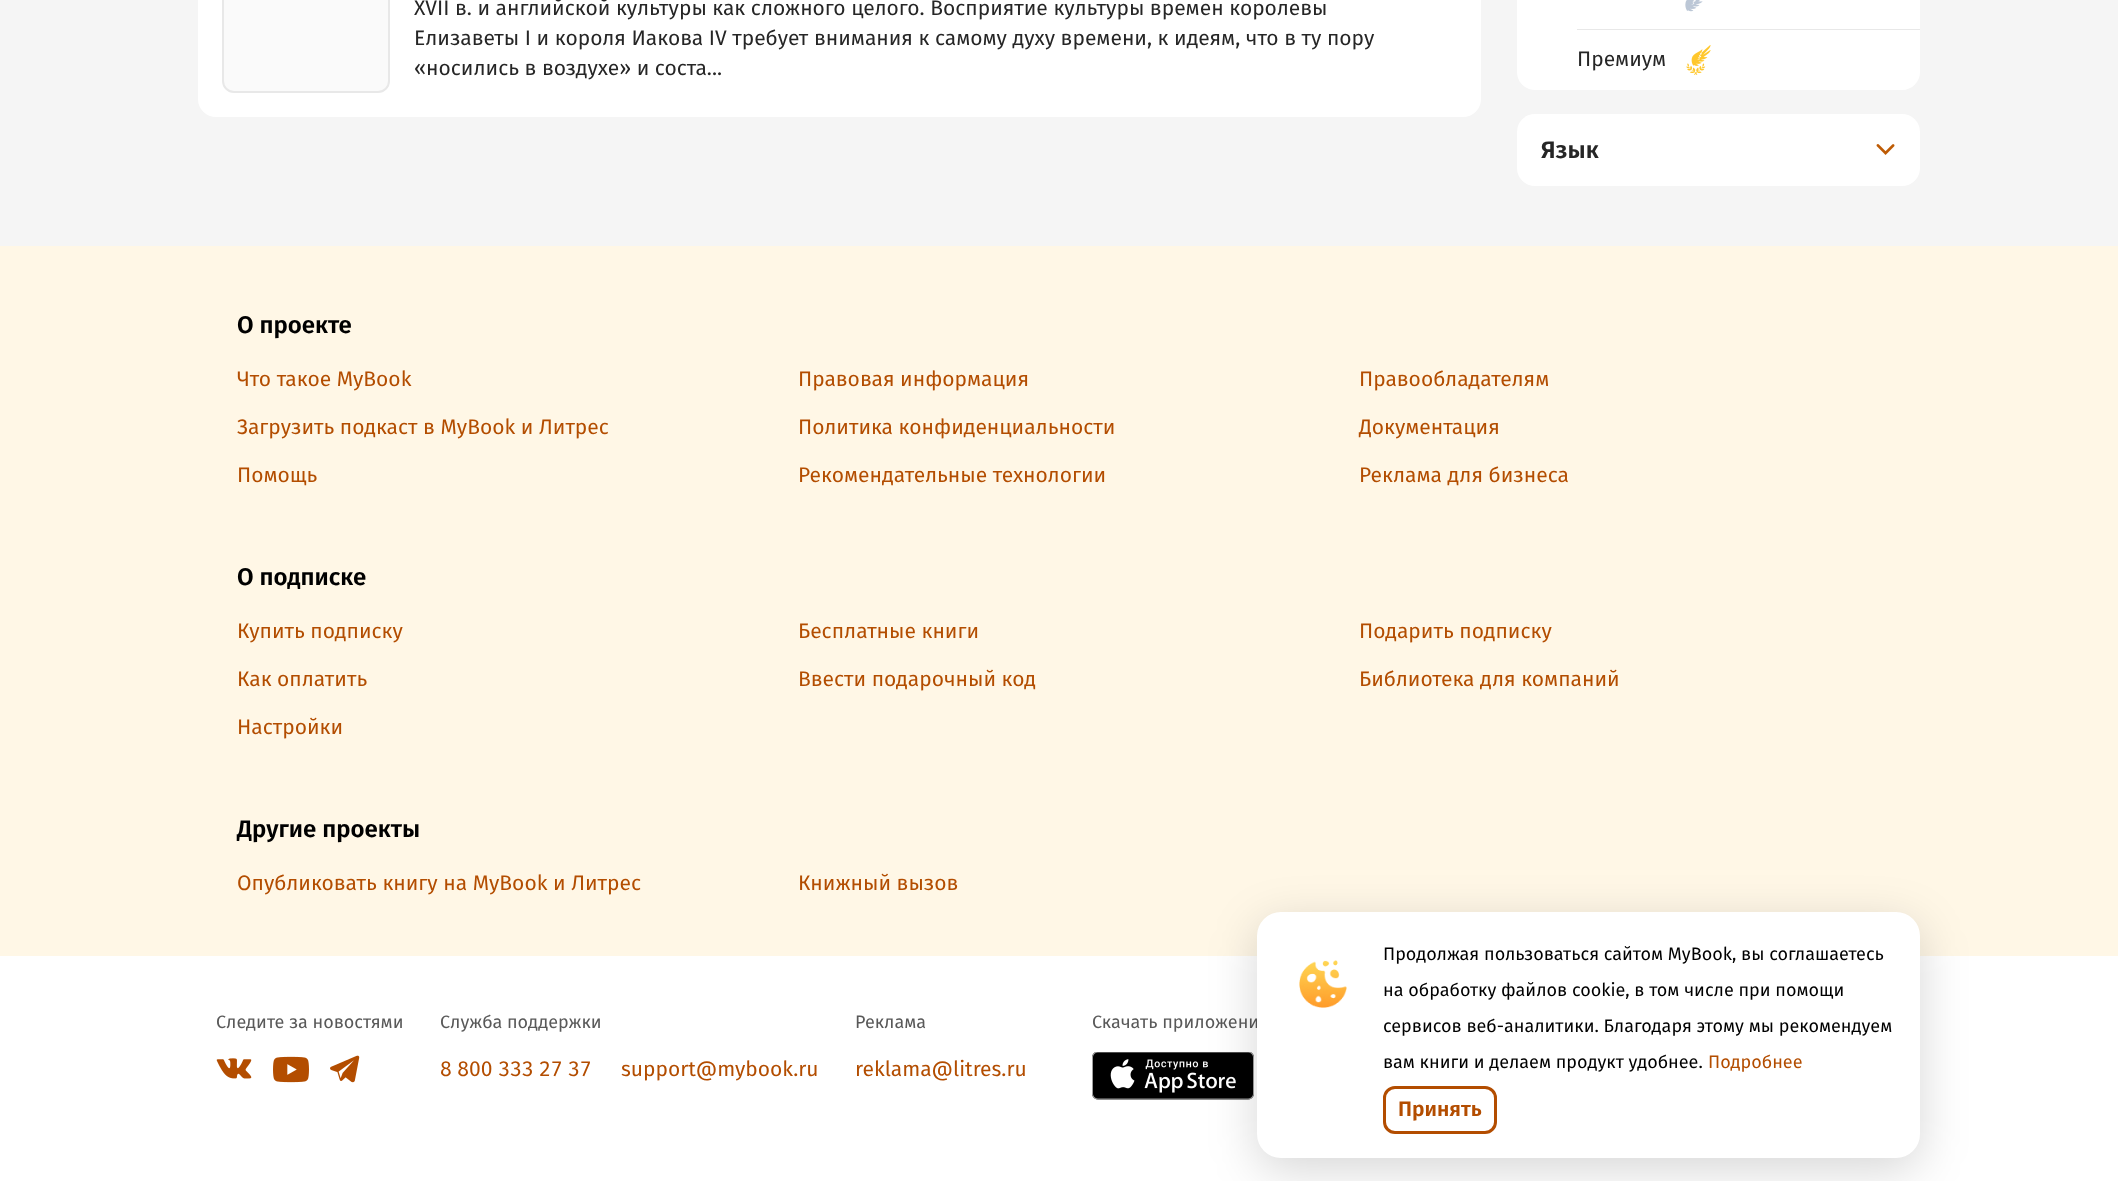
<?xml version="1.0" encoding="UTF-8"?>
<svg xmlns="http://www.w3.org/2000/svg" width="2118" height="1181">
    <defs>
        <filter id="blur1" x="-50%" y="-200%" width="200%" height="500%"><feGaussianBlur stdDeviation="24"/></filter>
    </defs>
    <rect width="100%" height="100%" fill="#F5F5F5"/>
    <rect x="198" y="-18" width="1283" height="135" rx="18" fill="#FFFFFF"/>
    <rect x="223" y="-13" width="166" height="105" rx="11" fill="#FAFAFA" stroke="#E8E8E8" stroke-width="2"/>
    <text font-family="Fira Sans" font-size="21" fill="#262626">
        <tspan x="414" y="15">XVII в. и английской культуры как сложного целого. Восприятие культуры времен королевы</tspan>
        <tspan x="414" y="45">Елизаветы I и короля Иакова IV требует внимания к самому духу времени, к идеям, что в ту пору</tspan>
        <tspan x="414" y="75">«носились в воздухе» и соста...</tspan>
    </text>
    <path d="M 1517 -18 H 1920 V 72 C 1920 82 1912 90 1902 90 H 1535 C 1525 90 1517 82 1517 72 Z" fill="#FFFFFF"/>
    <rect x="1577" y="29" width="343" height="1" fill="#E8E8E8"/>
    <image x="1685" y="0" width="18" height="12" href="img_01.png"/>
    <text x="1577" y="66" font-family="Fira Sans" font-size="21" fill="#262626">Премиум</text>
    <image x="1686" y="45" width="25" height="30" href="img_02.png"/>
    <rect x="1517" y="114" width="403" height="72" rx="18" fill="#FFFFFF"/>
    <text x="1541" y="158" font-family="Fira Sans" font-size="24" font-weight="600" fill="#262626">Язык</text>
    <image x="1876" y="144" width="19" height="11" href="img_03.png"/>
    <rect x="0" y="246" width="2118" height="710" fill="#FFF7E6"/>
    <text x="237" y="333" font-family="Fira Sans" font-size="24" font-weight="600" fill="#000000">О проекте</text>
    <text x="237" y="386" font-family="Fira Sans" font-size="21" fill="#B34D00">Что такое MyBook</text>
    <text x="798" y="386" font-family="Fira Sans" font-size="21" fill="#B34D00">Правовая информация</text>
    <text x="1359" y="386" font-family="Fira Sans" font-size="21" fill="#B34D00">Правообладателям</text>
    <text x="237" y="434" font-family="Fira Sans" font-size="21" fill="#B34D00">Загрузить подкаст в MyBook и Литрес</text>
    <text x="798" y="434" font-family="Fira Sans" font-size="21" fill="#B34D00">Политика конфиденциальности</text>
    <text x="1359" y="434" font-family="Fira Sans" font-size="21" fill="#B34D00">Документация</text>
    <text x="237" y="482" font-family="Fira Sans" font-size="21" fill="#B34D00">Помощь</text>
    <text x="798" y="482" font-family="Fira Sans" font-size="21" fill="#B34D00">Рекомендательные технологии</text>
    <text x="1359" y="482" font-family="Fira Sans" font-size="21" fill="#B34D00">Реклама для бизнеса</text>
    <text x="237" y="585" font-family="Fira Sans" font-size="24" font-weight="600" fill="#000000">О подписке</text>
    <text x="237" y="638" font-family="Fira Sans" font-size="21" fill="#B34D00">Купить подписку</text>
    <text x="798" y="638" font-family="Fira Sans" font-size="21" fill="#B34D00">Бесплатные книги</text>
    <text x="1359" y="638" font-family="Fira Sans" font-size="21" fill="#B34D00">Подарить подписку</text>
    <text x="237" y="686" font-family="Fira Sans" font-size="21" fill="#B34D00">Как оплатить</text>
    <text x="798" y="686" font-family="Fira Sans" font-size="21" fill="#B34D00">Ввести подарочный код</text>
    <text x="1359" y="686" font-family="Fira Sans" font-size="21" fill="#B34D00">Библиотека для компаний</text>
    <text x="237" y="734" font-family="Fira Sans" font-size="21" fill="#B34D00">Настройки</text>
    <text x="237" y="837" font-family="Fira Sans" font-size="24" font-weight="600" fill="#000000">Другие проекты</text>
    <text x="237" y="890" font-family="Fira Sans" font-size="21" fill="#B34D00">Опубликовать книгу на MyBook и Литрес</text>
    <text x="798" y="890" font-family="Fira Sans" font-size="21" fill="#B34D00">Книжный вызов</text>
    <rect x="0" y="956" width="2118" height="225" fill="#FFFFFF"/>
    <text x="216" y="1028" font-family="Fira Sans" font-size="18" fill="#595959">Следите за новостями</text>
    <image x="216" y="1058" width="36" height="21" href="img_04.png"/>
    <image x="273" y="1056" width="36" height="27" href="img_05.png"/>
    <image x="330" y="1055" width="30" height="28" href="img_06.png"/>
    <text x="440" y="1028" font-family="Fira Sans" font-size="18" fill="#595959">Служба поддержки</text>
    <text x="440" y="1076" font-family="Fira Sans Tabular" font-size="21" fill="#B34D00">8 800 333 27 37</text>
    <text x="621" y="1076" font-family="Fira Sans" font-size="21" fill="#B34D00">support@mybook.ru</text>
    <text x="855" y="1028" font-family="Fira Sans" font-size="18" fill="#595959">Реклама</text>
    <text x="855" y="1076" font-family="Fira Sans" font-size="21" fill="#B34D00">reklama@litres.ru</text>
    <text x="1092" y="1028" font-family="Fira Sans" font-size="18" fill="#595959">Скачать приложени</text>
    <image x="1092" y="1052" width="162" height="48" href="img_07.png"/>
    <rect x="1257" y="924" width="663" height="246" rx="24" fill="#000000" fill-opacity="0.16" filter="url(#blur1)"/>
    <rect x="1257" y="912" width="663" height="246" rx="24" fill="#FFFFFF"/>
    <image x="1299" y="960" width="48" height="48" href="img_08.png"/>
    <text x="1383" y="960" font-family="Fira Sans" font-size="18" fill="#000000">Продолжая пользоваться сайтом MyBook, вы соглашаетесь</text>
    <text x="1383" y="996" font-family="Fira Sans" font-size="18" fill="#000000">на обработку файлов cookie, в том числе при помощи</text>
    <text x="1383" y="1032" font-family="Fira Sans" font-size="18" fill="#000000">сервисов веб-аналитики. Благодаря этому мы рекомендуем</text>
    <text x="1383" y="1068" font-family="Fira Sans" font-size="18" fill="#000000">вам книги и делаем продукт удобнее.</text>
    <text x="1708" y="1068" font-family="Fira Sans" font-size="18" fill="#B34D00">Подробнее</text>
    <rect x="1384.5" y="1087.5" width="111" height="45" rx="10.5" fill="none" stroke="#B34D00" stroke-width="3"/>
    <text x="1398" y="1116" font-family="Fira Sans" font-size="21" font-weight="600" fill="#B34D00">Принять</text>
</svg>
